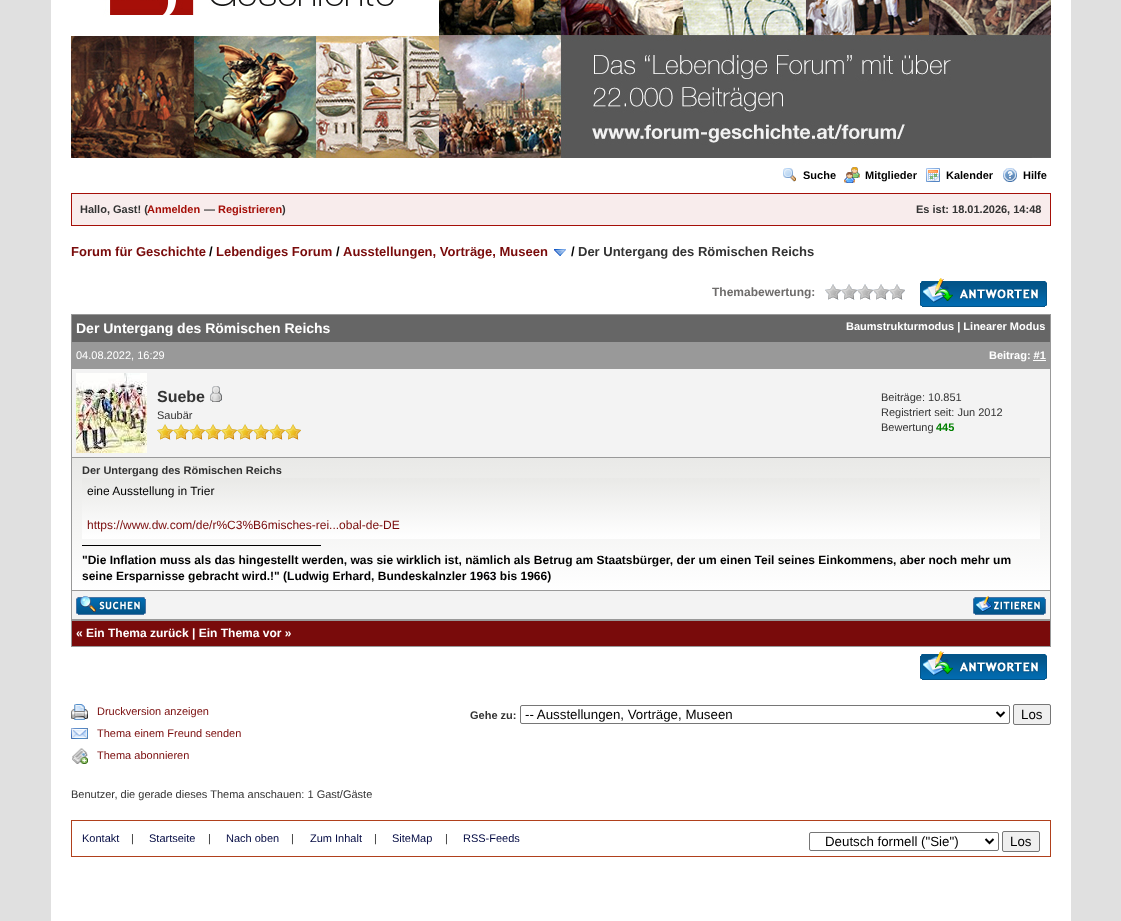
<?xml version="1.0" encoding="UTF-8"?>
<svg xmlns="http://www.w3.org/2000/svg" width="1121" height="921">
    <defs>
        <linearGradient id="g1" gradientUnits="userSpaceOnUse" x1="561" y1="458" x2="561" y2="590"><stop offset="0" stop-color="#E9E9E7"/><stop offset="1" stop-color="#FFFFFF"/></linearGradient>
        <linearGradient id="g2" gradientUnits="userSpaceOnUse" x1="561" y1="478" x2="561" y2="539"><stop offset="0" stop-color="#E9E9E7"/><stop offset="1" stop-color="#FFFFFF"/></linearGradient>
    </defs>
    <rect width="100%" height="100%" fill="#E0E0E0"/>
    <rect x="51" y="0" width="1020" height="921" fill="#FFFFFF"/>
    <image x="71" y="0" width="980" height="158" href="img_01.png"/>
    <image x="783" y="168" width="13" height="14" href="img_02.png"/>
    <text x="803" y="179" font-family="Liberation Sans" font-size="11" font-weight="700" fill="#000000">Suche</text>
    <image x="844" y="167" width="16" height="16" href="img_03.png"/>
    <text x="865" y="179" font-family="Liberation Sans" font-size="11" font-weight="700" fill="#000000">Mitglieder</text>
    <image x="926" y="168" width="14" height="14" href="img_04.png"/>
    <text x="946" y="179" font-family="Liberation Sans" font-size="11" font-weight="700" fill="#000000">Kalender</text>
    <image x="1003" y="168" width="14" height="14" href="img_05.png"/>
    <text x="1023" y="179" font-family="Liberation Sans" font-size="11" font-weight="700" fill="#000000">Hilfe</text>
    <rect x="71.5" y="193.5" width="979" height="32" fill="#F8ECEC" stroke="#A50F08"/>
    <text x="80" y="213" font-family="Liberation Sans" font-size="11" font-weight="700" fill="#333333">Hallo, Gast! (</text>
    <text x="147" y="213" font-family="Liberation Sans" font-size="11" font-weight="700" fill="#A50F08">Anmelden</text>
    <text x="204" y="213" font-family="Liberation Sans" font-size="11" font-weight="700" fill="#333333">—</text>
    <text x="218" y="213" font-family="Liberation Sans" font-size="11" font-weight="700" fill="#A50F08">Registrieren</text>
    <text x="282" y="213" font-family="Liberation Sans" font-size="11" font-weight="700" fill="#333333">)</text>
    <text x="916" y="213" font-family="Liberation Sans" font-size="11" font-weight="700" fill="#333333">Es ist: 18.01.2026, 14:48</text>
    <text x="71" y="256" font-family="Liberation Sans" font-size="13" font-weight="700" fill="#790B0B">Forum für Geschichte</text>
    <text x="209" y="256" font-family="Liberation Sans" font-size="13" font-weight="700" fill="#000000">/</text>
    <text x="216" y="256" font-family="Liberation Sans" font-size="13" font-weight="700" fill="#790B0B">Lebendiges Forum</text>
    <text x="336" y="256" font-family="Liberation Sans" font-size="13" font-weight="700" fill="#000000">/</text>
    <text x="343" y="256" font-family="Liberation Sans" font-size="13" font-weight="700" fill="#790B0B">Ausstellungen, Vorträge, Museen</text>
    <image x="554" y="249" width="12" height="7" href="img_06.png"/>
    <text x="571" y="256" font-family="Liberation Sans" font-size="13" font-weight="700" fill="#000000">/</text>
    <text x="578" y="256" font-family="Liberation Sans" font-size="13" font-weight="700" fill="#333333">Der Untergang des Römischen Reichs</text>
    <text x="712" y="296" font-family="Liberation Sans" font-size="12" font-weight="700" fill="#6E6C6B">Themabewertung:</text>
    <image x="825" y="284" width="80" height="16" href="img_07.png"/>
    <image x="920" y="278" width="127" height="29" href="img_08.png"/>
    <rect x="71" y="314" width="980" height="333" fill="#999999"/>
    <rect x="72" y="315" width="978" height="27" fill="#666666"/>
    <text x="76" y="333" font-family="Liberation Sans" font-size="14" font-weight="700" fill="#FFFFFF">Der Untergang des Römischen Reichs</text>
    <text x="846" y="330" font-family="Liberation Sans" font-size="11" font-weight="700" fill="#FFFFFF">Baumstrukturmodus | Linearer Modus</text>
    <text x="76" y="359" font-family="Liberation Sans" font-size="11" fill="#FFFFFF">04.08.2022, 16:29</text>
    <text x="989" y="359" font-family="Liberation Sans" font-size="11" font-weight="700" fill="#FFFFFF">Beitrag: #1</text>
    <rect x="1033" y="360" width="13" height="1" fill="#FFFFFF"/>
    <rect x="72" y="369" width="978" height="88" fill="#F3F3F3"/>
    <image x="76" y="373" width="71" height="80" href="img_09.png"/>
    <text x="157" y="402" font-family="Liberation Sans" font-size="16" font-weight="700" fill="#333333">Suebe</text>
    <image x="210" y="386" width="12" height="16" href="img_10.png"/>
    <text x="157" y="419" font-family="Liberation Sans" font-size="11" fill="#333333">Saubär</text>
    <image x="157" y="424" width="16" height="16" href="img_11.png"/>
    <image x="173" y="424" width="16" height="16" href="img_11.png"/>
    <image x="189" y="424" width="16" height="16" href="img_11.png"/>
    <image x="205" y="424" width="16" height="16" href="img_11.png"/>
    <image x="221" y="424" width="16" height="16" href="img_11.png"/>
    <image x="237" y="424" width="16" height="16" href="img_11.png"/>
    <image x="253" y="424" width="16" height="16" href="img_11.png"/>
    <image x="269" y="424" width="16" height="16" href="img_11.png"/>
    <image x="285" y="424" width="16" height="16" href="img_11.png"/>
    <text font-family="Liberation Sans" font-size="11" fill="#333333">
        <tspan x="881" y="401">Beiträge: 10.851</tspan>
        <tspan x="881" y="416">Registriert seit: Jun 2012</tspan>
        <tspan x="881" y="431">Bewertung</tspan>
    </text>
    <text x="936" y="431" font-family="Liberation Sans" font-size="11" font-weight="700" fill="#008000">445</text>
    <rect x="72" y="458" width="978" height="132" fill="url(#g1)"/>
    <text x="82" y="474" font-family="Liberation Sans" font-size="11" font-weight="700" fill="#333333">Der Untergang des Römischen Reichs</text>
    <rect x="82" y="478" width="958" height="61" fill="url(#g2)"/>
    <text x="87" y="495" font-family="Liberation Sans" font-size="12" fill="#000000">eine Ausstellung in Trier</text>
    <text x="87" y="529" font-family="Liberation Sans" font-size="12" fill="#790B0B">https://www.dw.com/de/r%C3%B6misches-rei...obal-de-DE</text>
    <rect x="82" y="545" width="239" height="1" fill="#000000"/>
    <text font-family="Liberation Sans" font-size="12" font-weight="700" fill="#000000">
        <tspan x="82" y="564">"Die Inflation muss als das hingestellt werden, was sie wirklich ist, nämlich als Betrug am Staatsbürger, der um einen Teil seines Einkommens, aber noch mehr um</tspan>
        <tspan x="82" y="580">seine Ersparnisse gebracht wird.!" (Ludwig Erhard, Bundeskalnzler 1963 bis 1966)</tspan>
    </text>
    <rect x="72" y="591" width="978" height="28" fill="#F3F3F3"/>
    <image x="76" y="596" width="70" height="19" href="img_12.png"/>
    <image x="973" y="596" width="73" height="19" href="img_13.png"/>
    <rect x="72" y="621" width="978" height="25" fill="#790B0B"/>
    <text x="76" y="637" font-family="Liberation Sans" font-size="12" font-weight="700" fill="#FFFFFF">« Ein Thema zurück | Ein Thema vor »</text>
    <image x="920" y="651" width="127" height="29" href="img_08.png"/>
    <image x="71" y="704" width="17" height="16" href="img_14.png"/>
    <text x="97" y="715" font-family="Liberation Sans" font-size="11" fill="#790B0B">Druckversion anzeigen</text>
    <image x="71" y="728" width="17" height="11" href="img_15.png"/>
    <text x="97" y="737" font-family="Liberation Sans" font-size="11" fill="#790B0B">Thema einem Freund senden</text>
    <image x="72" y="748" width="16" height="16" href="img_16.png"/>
    <text x="97" y="759" font-family="Liberation Sans" font-size="11" fill="#790B0B">Thema abonnieren</text>
    <text x="470" y="719" font-family="Liberation Sans" font-size="11" font-weight="700" fill="#333333">Gehe zu:</text>
    <rect x="520.5" y="705.5" width="489" height="18" rx="1.5" fill="none" stroke="#767676"/>
    <path d="M 996.5 712 L 1000.5 716 L 1004.5 712" fill="none" stroke="#000000" stroke-width="2"/>
    <text x="525" y="719" font-family="Liberation Sans" font-size="13.3" fill="#000000">-- Ausstellungen, Vorträge, Museen</text>
    <rect x="1013.5" y="704.5" width="37" height="20" rx="1.5" fill="#EFEFEF" stroke="#767676"/>
    <text x="1021" y="719" font-family="Liberation Sans" font-size="13.3" fill="#000000">Los</text>
    <text x="71" y="798" font-family="Liberation Sans" font-size="11" fill="#333333">Benutzer, die gerade dieses Thema anschauen: 1 Gast/Gäste</text>
    <rect x="71.5" y="820.5" width="979" height="36" fill="none" stroke="#B0401C"/>
    <text x="82" y="842" font-family="Liberation Sans" font-size="11" fill="#000841">Kontakt</text>
    <text x="131" y="842" font-family="Liberation Sans" font-size="11" fill="#333333">|</text>
    <text x="149" y="842" font-family="Liberation Sans" font-size="11" fill="#000841">Startseite</text>
    <text x="208" y="842" font-family="Liberation Sans" font-size="11" fill="#333333">|</text>
    <text x="226" y="842" font-family="Liberation Sans" font-size="11" fill="#000841">Nach oben</text>
    <text x="291" y="842" font-family="Liberation Sans" font-size="11" fill="#333333">|</text>
    <text x="310" y="842" font-family="Liberation Sans" font-size="11" fill="#000841">Zum Inhalt</text>
    <text x="374" y="842" font-family="Liberation Sans" font-size="11" fill="#333333">|</text>
    <text x="392" y="842" font-family="Liberation Sans" font-size="11" fill="#000841">SiteMap</text>
    <text x="445" y="842" font-family="Liberation Sans" font-size="11" fill="#333333">|</text>
    <text x="463" y="842" font-family="Liberation Sans" font-size="11" fill="#000841">RSS-Feeds</text>
    <rect x="809.5" y="832.5" width="189" height="18" rx="1.5" fill="none" stroke="#767676"/>
    <path d="M 985.5 839 L 989.5 843 L 993.5 839" fill="none" stroke="#000000" stroke-width="2"/>
    <text x="825" y="846" font-family="Liberation Sans" font-size="13.3" fill="#000000">Deutsch formell ("Sie")</text>
    <rect x="1002.5" y="831.5" width="37" height="20" rx="1.5" fill="#EFEFEF" stroke="#767676"/>
    <text x="1010" y="846" font-family="Liberation Sans" font-size="13.3" fill="#000000">Los</text>
</svg>
